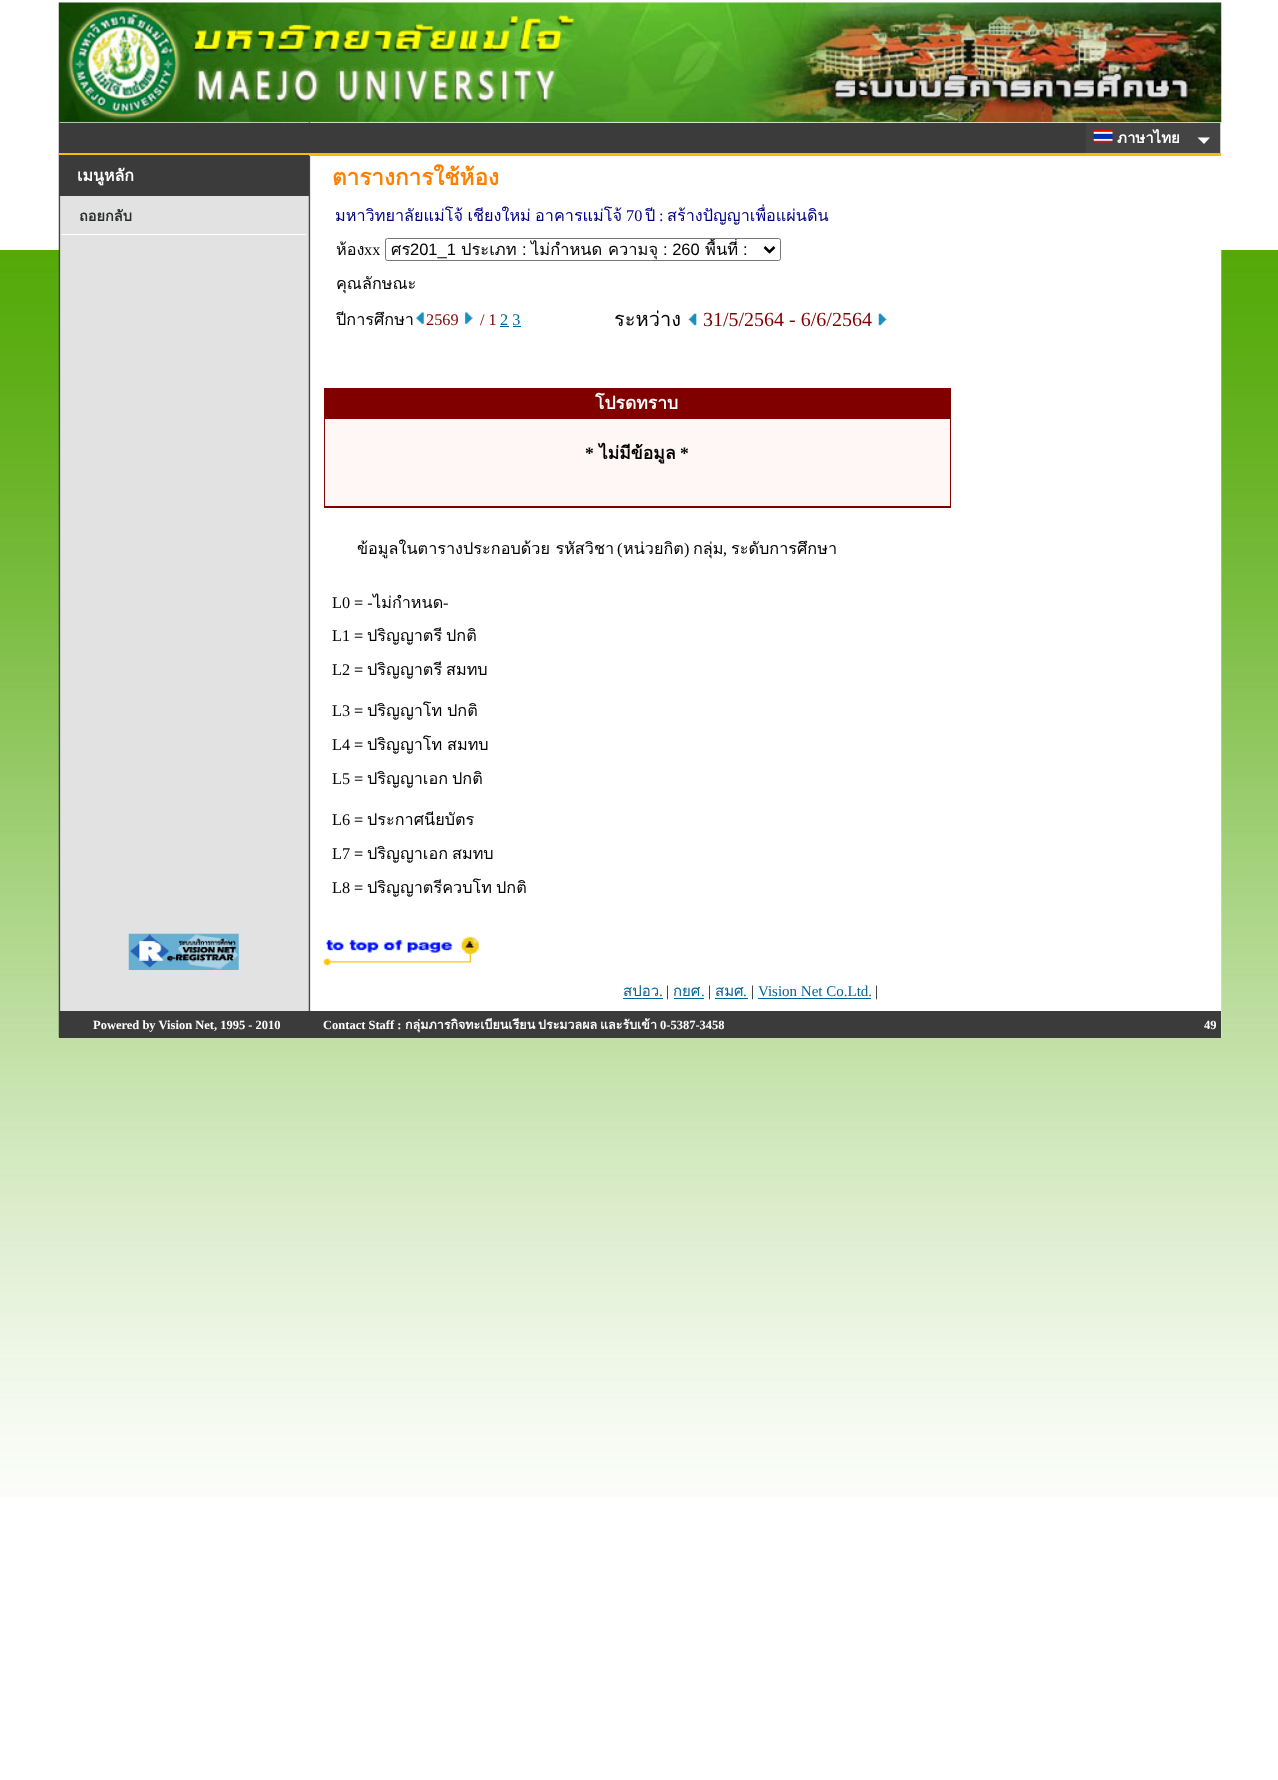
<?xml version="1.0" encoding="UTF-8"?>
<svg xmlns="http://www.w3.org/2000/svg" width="1278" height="1780">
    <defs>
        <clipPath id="clip1"><rect x="391" y="239" width="369" height="21"/></clipPath>
    </defs>
    <rect width="100%" height="100%" fill="#FFFFFF"/>
    <image x="0" y="250" width="1278" height="1247" href="img_01.png"/>
    <rect x="3" y="250" width="1273" height="1247" fill="#FFFFFF"/>
    <image x="3" y="250" width="1273" height="1247" href="img_02.png"/>
    <image x="58" y="2" width="1164" height="121" href="img_03.png"/>
    <image x="58" y="122" width="1164" height="916" href="img_04.png"/>
    <rect x="59" y="123" width="1027" height="30" fill="#3B3B3B"/>
    <rect x="1086" y="123" width="134" height="30" fill="#444444"/>
    <rect x="1220" y="123" width="1" height="30" fill="#CCCCCC"/>
    <image x="1093" y="130" width="20" height="13" href="img_05.png"/>
    <text x="1117" y="143" font-family="Loma" font-size="15" font-weight="700" fill="#FFFFFF">ภาษาไทย</text>
    <path d="M 1197.5 137.5 H 1210 L 1204 144 Z" fill="#FFFFFF"/>
    <rect x="59" y="153" width="1162" height="3" fill="#FFBA00"/>
    <rect x="59" y="155" width="250" height="41" fill="#3B3B3B"/>
    <text x="77" y="181" font-family="Loma" font-size="16" font-weight="700" fill="#FFFFFF">เมนูหลัก</text>
    <rect x="61" y="234" width="245" height="1" fill="#FFFFFF"/>
    <text x="79" y="221" font-family="Loma" font-size="14.5" font-weight="700" fill="#292D2E">ถอยกลับ</text>
    <text x="332" y="185" font-family="Loma" font-size="22.5" font-weight="700" fill="#FF8000">ตารางการใช้ห้อง</text>
    <text x="335" y="221" word-spacing="-1" font-family="Loma" font-size="16.25" fill="#000080">มหาวิทยาลัยแม่โจ้ เชียงใหม่</text>
    <text x="535" y="221" font-family="Loma" font-size="16.25" fill="#000080">อาคารแม่โจ้</text>
    <text x="626" y="221" font-family="Liberation Serif" font-size="16.25" fill="#000080">70</text>
    <text x="645" y="221" font-family="Loma" font-size="16.25" fill="#000080">ปี</text>
    <text x="659" y="221" font-family="Liberation Serif" font-size="16.25" fill="#000080">:</text>
    <text x="667" y="221" font-family="Loma" font-size="16.25" fill="#000080">สร้างปัญญาเพื่อแผ่นดิน</text>
    <text x="336" y="255" font-family="Loma" font-size="16.25" fill="#000000">ห้อง</text>
    <text x="364" y="255" font-family="Liberation Serif" font-size="16.25" fill="#000000">xx</text>
    <rect x="385.5" y="238.5" width="395" height="22" rx="2" fill="none" stroke="#767676"/>
    <path d="M 764.5 247 L 769.5 252 L 774.5 247" fill="none" stroke="#000000" stroke-width="2.5"/>
    <text x="391" y="255" font-family="Loma" font-size="16.5" fill="#000000">ศร</text>
    <text x="410" y="255" font-family="Liberation Sans" font-size="16.5" fill="#000000">201_1</text>
    <text x="461" y="255" font-family="Loma" font-size="16.5" fill="#000000">ประเภท</text>
    <text x="522" y="255" font-family="Liberation Sans" font-size="16.5" fill="#000000">:</text>
    <text x="531" y="255" font-family="Loma" font-size="16.5" fill="#000000">ไม่กำหนด</text>
    <text x="608" y="255" font-family="Loma" font-size="16.5" fill="#000000">ความจุ</text>
    <text x="663" y="255" font-family="Liberation Sans" font-size="16.5" fill="#000000">: 260</text>
    <g clip-path="url(#clip1)">
        <text x="705" y="255" font-family="Loma" font-size="16.5" fill="#000000">พื้นที่</text>
    </g>
    <text x="743" y="255" font-family="Liberation Sans" font-size="16.5" fill="#000000">:</text>
    <text x="336" y="289" font-family="Loma" font-size="16.25" fill="#000000">คุณลักษณะ</text>
    <text x="336" y="325" font-family="Loma" font-size="16.25" fill="#000000">ปีการศึกษา</text>
    <image x="416" y="312" width="8" height="12" href="img_06.png"/>
    <text x="426" y="325" font-family="Liberation Serif" font-size="16.25" fill="#800000">2569</text>
    <image x="464" y="312" width="9" height="12" href="img_07.png"/>
    <text x="480" y="325" font-family="Liberation Serif" font-size="16.25" fill="#800000">/ 1</text>
    <text x="500" y="325" font-family="Liberation Serif" font-size="16.25" fill="#006699">2 3</text>
    <rect x="500" y="326" width="9" height="1" fill="#006699"/>
    <rect x="513" y="326" width="8" height="1" fill="#006699"/>
    <text x="614" y="326" font-family="Loma" font-size="20" fill="#000000">ระหว่าง</text>
    <image x="688" y="313" width="9" height="13" href="img_08.png"/>
    <text x="703" y="326" font-family="Liberation Serif" font-size="20" fill="#800000">31/5/2564 - 6/6/2564</text>
    <image x="878" y="313" width="9" height="13" href="img_09.png"/>
    <rect x="324" y="388" width="627" height="120" fill="#800000"/>
    <text x="595" y="409" font-family="Loma" font-size="17.5" font-weight="700" fill="#FFFFFF">โปรดทราบ</text>
    <rect x="325" y="419" width="625" height="87" fill="#FFF6F6"/>
    <text x="585" y="459" font-family="Liberation Serif" font-size="17.5" font-weight="700" fill="#000000">*</text>
    <text x="599" y="459" font-family="Loma" font-size="17.5" font-weight="700" fill="#000000">ไม่มีข้อมูล</text>
    <text x="680" y="459" font-family="Liberation Serif" font-size="17.5" font-weight="700" fill="#000000">*</text>
    <text x="357" y="554" font-family="Loma" font-size="16.25" fill="#000000">ข้อมูลในตารางประกอบด้วย รหัสวิชา</text>
    <text x="617" y="554" font-family="Liberation Serif" font-size="16.25" fill="#000000">(</text>
    <text x="623" y="554" font-family="Loma" font-size="16.25" fill="#000000">หน่วยกิต</text>
    <text x="684" y="554" font-family="Liberation Serif" font-size="16.25" fill="#000000">)</text>
    <text x="693" y="554" font-family="Loma" font-size="16.25" fill="#000000">กลุ่ม</text>
    <text x="723" y="554" font-family="Liberation Serif" font-size="16.25" fill="#000000">,</text>
    <text x="731" y="554" font-family="Loma" font-size="16.25" fill="#000000">ระดับการศึกษา</text>
    <text x="332" y="608" font-family="Liberation Serif" font-size="16.25" fill="#000000">L0 = -</text>
    <text x="373" y="608" font-family="Loma" font-size="16.25" fill="#000000">ไม่กำหนด</text>
    <text x="443" y="608" font-family="Liberation Serif" font-size="16.25" fill="#000000">-</text>
    <text x="332" y="641" font-family="Liberation Serif" font-size="16.25" fill="#000000">L1 =</text>
    <text x="367" y="641" font-family="Loma" font-size="16.25" fill="#000000">ปริญญาตรี</text>
    <text x="446" y="641" font-family="Loma" font-size="16.25" fill="#000000">ปกติ</text>
    <text x="332" y="675" font-family="Liberation Serif" font-size="16.25" fill="#000000">L2 =</text>
    <text x="367" y="675" font-family="Loma" font-size="16.25" fill="#000000">ปริญญาตรี</text>
    <text x="446" y="675" font-family="Loma" font-size="16.25" fill="#000000">สมทบ</text>
    <text x="332" y="716" font-family="Liberation Serif" font-size="16.25" fill="#000000">L3 =</text>
    <text x="367" y="716" font-family="Loma" font-size="16.25" fill="#000000">ปริญญาโท</text>
    <text x="447" y="716" font-family="Loma" font-size="16.25" fill="#000000">ปกติ</text>
    <text x="332" y="750" font-family="Liberation Serif" font-size="16.25" fill="#000000">L4 =</text>
    <text x="367" y="750" font-family="Loma" font-size="16.25" fill="#000000">ปริญญาโท</text>
    <text x="447" y="750" font-family="Loma" font-size="16.25" fill="#000000">สมทบ</text>
    <text x="332" y="784" font-family="Liberation Serif" font-size="16.25" fill="#000000">L5 =</text>
    <text x="367" y="784" font-family="Loma" font-size="16.25" fill="#000000">ปริญญาเอก</text>
    <text x="452" y="784" font-family="Loma" font-size="16.25" fill="#000000">ปกติ</text>
    <text x="332" y="825" font-family="Liberation Serif" font-size="16.25" fill="#000000">L6 =</text>
    <text x="367" y="825" font-family="Loma" font-size="16.25" fill="#000000">ประกาศนียบัตร</text>
    <text x="332" y="859" font-family="Liberation Serif" font-size="16.25" fill="#000000">L7 =</text>
    <text x="367" y="859" font-family="Loma" font-size="16.25" fill="#000000">ปริญญาเอก</text>
    <text x="452" y="859" font-family="Loma" font-size="16.25" fill="#000000">สมทบ</text>
    <text x="332" y="893" font-family="Liberation Serif" font-size="16.25" fill="#000000">L8 =</text>
    <text x="367" y="893" font-family="Loma" font-size="16.25" fill="#000000">ปริญญาตรีควบโท</text>
    <text x="496" y="893" font-family="Loma" font-size="16.25" fill="#000000">ปกติ</text>
    <image x="128" y="933" width="111" height="37" href="img_10.png"/>
    <image x="323" y="936" width="156" height="30" href="img_11.png"/>
    <text x="623" y="996" font-family="Loma" font-size="15" fill="#006699">สปอว</text>
    <text x="659" y="996" font-family="Liberation Serif" font-size="15" fill="#006699">.</text>
    <rect x="623" y="998" width="40" height="1" fill="#006699"/>
    <text x="666" y="996" font-family="Liberation Serif" font-size="15" fill="#000000">|</text>
    <text x="673" y="996" font-family="Loma" font-size="15" fill="#006699">กยศ</text>
    <text x="701" y="996" font-family="Liberation Serif" font-size="15" fill="#006699">.</text>
    <rect x="674" y="998" width="30" height="1" fill="#006699"/>
    <text x="708" y="996" font-family="Liberation Serif" font-size="15" fill="#000000">|</text>
    <text x="715" y="996" font-family="Loma" font-size="15" fill="#006699">สมศ</text>
    <text x="743" y="996" font-family="Liberation Serif" font-size="15" fill="#006699">.</text>
    <rect x="715" y="998" width="33" height="1" fill="#006699"/>
    <text x="751" y="996" font-family="Liberation Serif" font-size="15" fill="#000000">|</text>
    <text x="758" y="996" font-family="Liberation Serif" font-size="15" fill="#006699">Vision Net Co.Ltd.</text>
    <rect x="758" y="998" width="113" height="1" fill="#006699"/>
    <text x="875" y="996" font-family="Liberation Serif" font-size="15" fill="#000000">|</text>
    <rect x="59" y="1011" width="1162" height="27" fill="#3B3B3B"/>
    <text x="93" y="1029" font-family="Liberation Serif" font-size="12.5" font-weight="700" fill="#FFFFFF">Powered by Vision Net, 1995 - 2010</text>
    <text x="323" y="1029" font-family="Liberation Serif" font-size="12.5" font-weight="700" fill="#FFFFFF">Contact Staff :</text>
    <text x="405" y="1029" font-family="Loma" font-size="12.5" font-weight="700" fill="#FFFFFF">กลุ่มภารกิจทะเบียนเรียน</text>
    <text x="538" y="1029" font-family="Loma" font-size="12.5" font-weight="700" fill="#FFFFFF">ประมวลผล</text>
    <text x="600" y="1029" font-family="Loma" font-size="12.5" font-weight="700" fill="#FFFFFF">และรับเข้า</text>
    <text x="660" y="1029" font-family="Liberation Serif" font-size="12.5" font-weight="700" fill="#FFFFFF">0-5387-3458</text>
    <text x="1204" y="1029" font-family="Liberation Serif" font-size="12.5" font-weight="700" fill="#FFFFFF">49</text>
</svg>
